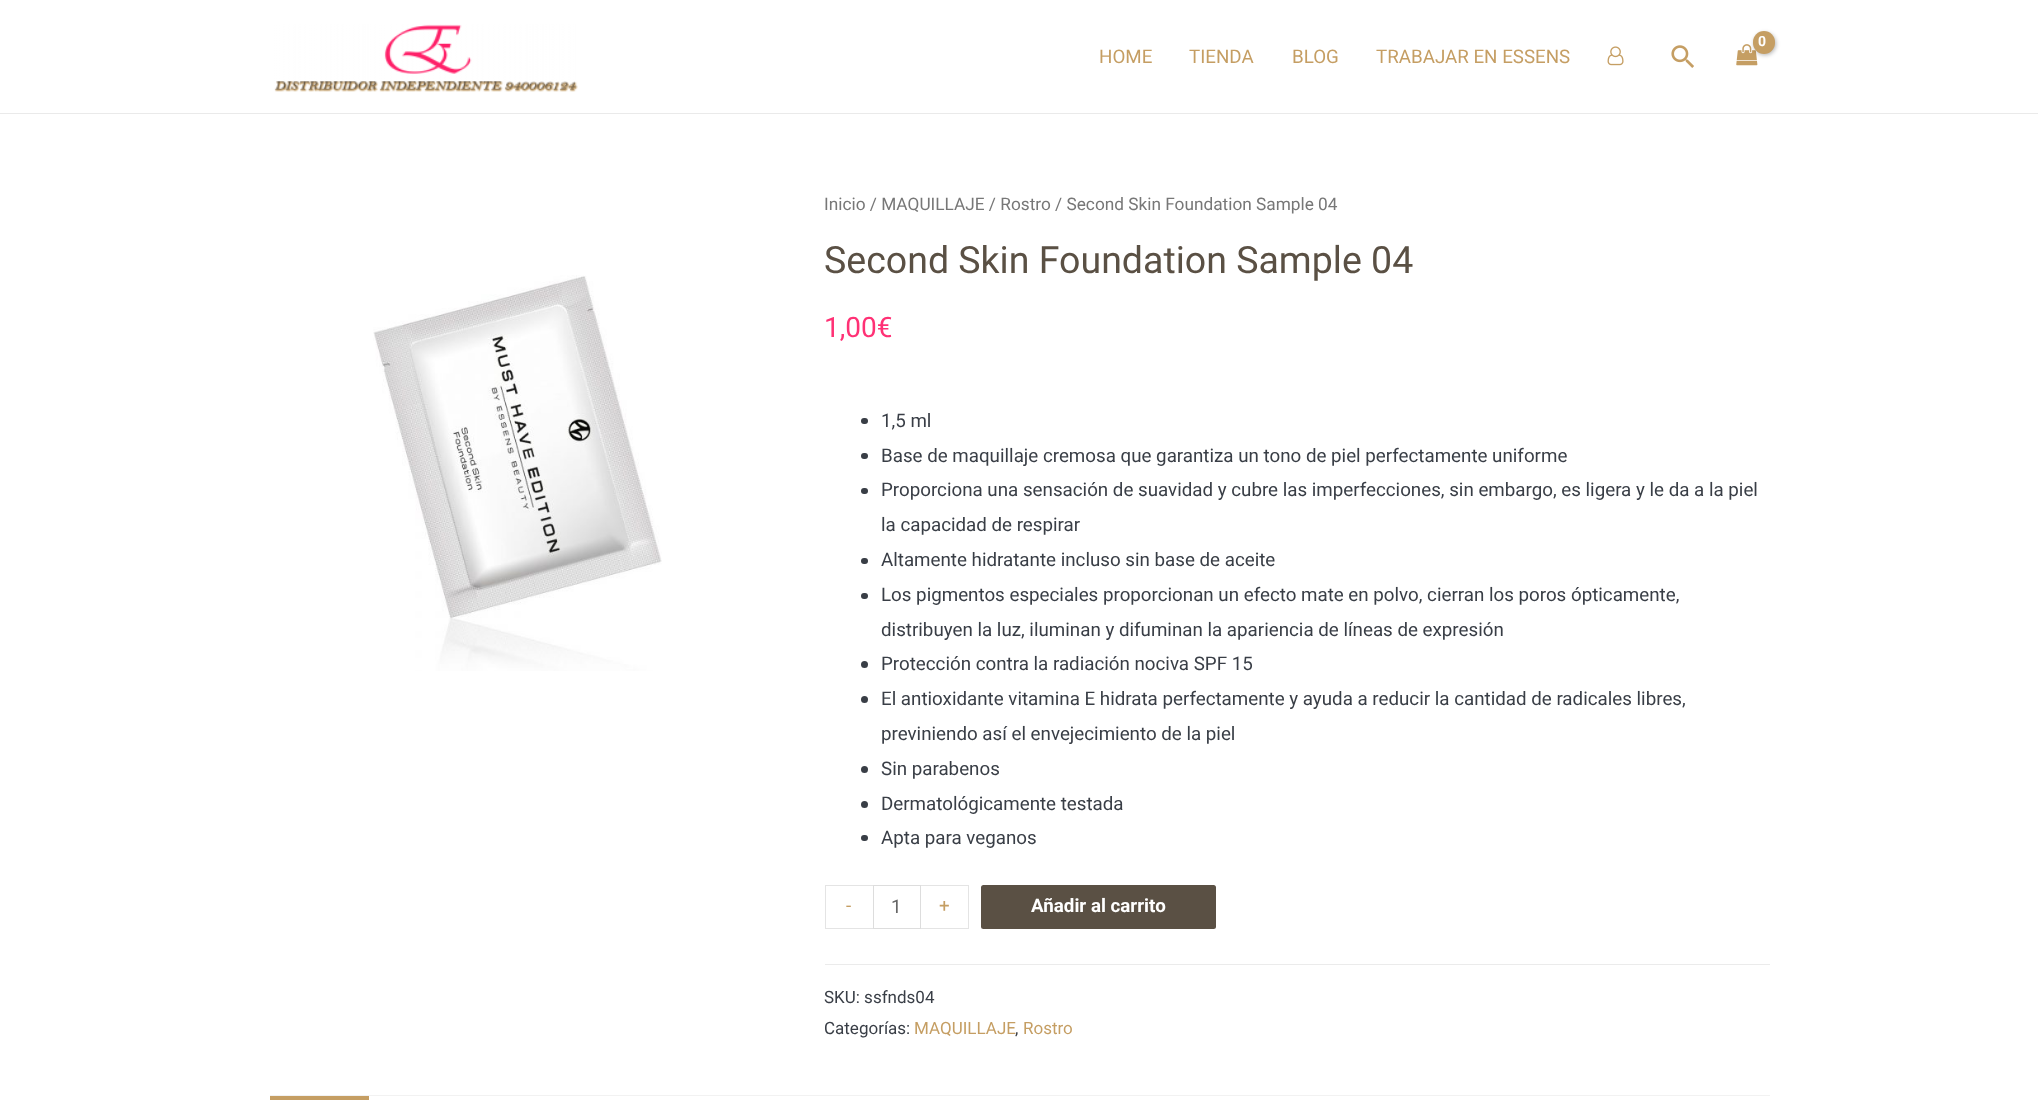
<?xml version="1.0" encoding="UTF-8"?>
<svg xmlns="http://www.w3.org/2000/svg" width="2038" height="1114">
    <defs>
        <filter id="blur1" x="-50%" y="-200%" width="200%" height="500%"><feGaussianBlur stdDeviation="2"/></filter>
    </defs>
    <rect width="100%" height="100%" fill="#FFFFFF"/>
    <rect x="0" y="113" width="2038" height="1" fill="#EAEAEA"/>
    <image x="274" y="24" width="304" height="68" href="img_01.png"/>
    <image x="1736" y="44" width="22" height="22" href="img_02.png"/>
    <rect x="1754" y="33" width="22" height="22" rx="11" fill="#000000" fill-opacity="0.3" filter="url(#blur1)"/>
    <rect x="1753" y="31" width="22" height="23" rx="11" fill="#C59E63"/>
    <text x="1758" y="46" font-family="Roboto" font-size="14" font-weight="700" letter-spacing="-1" fill="#FFFFFF">0</text>
    <text x="1099" y="63" font-family="Roboto" font-size="18.75" fill="#C59E63">HOME</text>
    <text x="1189" y="63" font-family="Roboto" font-size="18.75" fill="#C59E63">TIENDA</text>
    <text x="1292" y="63" font-family="Roboto" font-size="18.75" fill="#C59E63">BLOG</text>
    <text x="1376" y="63" font-family="Roboto" font-size="18.75" fill="#C59E63">TRABAJAR EN ESSENS</text>
    <image x="1607" y="46" width="17" height="20" href="img_03.png"/>
    <image x="1671" y="45" width="23" height="23" href="img_04.png"/>
    <image x="373" y="275" width="289" height="396" href="img_05.png"/>
    <text x="824" y="210" font-family="Roboto" font-size="17.25" fill="#777777">Inicio / MAQUILLAJE / Rostro / Second Skin Foundation Sample 04</text>
    <text x="824" y="273" font-family="Roboto" font-size="37.5" fill="#5A5044">Second Skin Foundation Sample 04</text>
    <text x="824" y="337" font-family="Roboto" font-size="28" fill="#FF3175">1,00€</text>
    <rect x="861" y="418" width="7" height="6" rx="3" fill="#393E46"/>
    <text x="881" y="427" font-family="Roboto" font-size="18.75" fill="#393E46">1,5 ml</text>
    <rect x="861" y="453" width="7" height="6" rx="3" fill="#393E46"/>
    <text x="881" y="462" font-family="Roboto" font-size="18.75" fill="#393E46">Base de maquillaje cremosa que garantiza un tono de piel perfectamente uniforme</text>
    <rect x="861" y="488" width="7" height="6" rx="3" fill="#393E46"/>
    <text font-family="Roboto" font-size="18.75" fill="#393E46">
        <tspan x="881" y="496">Proporciona una sensación de suavidad y cubre las imperfecciones, sin embargo, es ligera y le da a la piel</tspan>
        <tspan x="881" y="531">la capacidad de respirar</tspan>
    </text>
    <rect x="861" y="558" width="7" height="6" rx="3" fill="#393E46"/>
    <text x="881" y="566" font-family="Roboto" font-size="18.75" fill="#393E46">Altamente hidratante incluso sin base de aceite</text>
    <rect x="861" y="593" width="7" height="6" rx="3" fill="#393E46"/>
    <text font-family="Roboto" font-size="18.75" fill="#393E46">
        <tspan x="881" y="601">Los pigmentos especiales proporcionan un efecto mate en polvo, cierran los poros ópticamente,</tspan>
        <tspan x="881" y="636">distribuyen la luz, iluminan y difuminan la apariencia de líneas de expresión</tspan>
    </text>
    <circle cx="864.5" cy="664.5" r="3.5" fill="#393E46"/>
    <text x="881" y="670" font-family="Roboto" font-size="18.75" fill="#393E46">Protección contra la radiación nociva SPF 15</text>
    <circle cx="864.5" cy="699.5" r="3.5" fill="#393E46"/>
    <text font-family="Roboto" font-size="18.75" fill="#393E46">
        <tspan x="881" y="705">El antioxidante vitamina E hidrata perfectamente y ayuda a reducir la cantidad de radicales libres,</tspan>
        <tspan x="881" y="740">previniendo así el envejecimiento de la piel</tspan>
    </text>
    <circle cx="864.5" cy="769.5" r="3.5" fill="#393E46"/>
    <text x="881" y="775" font-family="Roboto" font-size="18.75" fill="#393E46">Sin parabenos</text>
    <circle cx="864.5" cy="804.5" r="3.5" fill="#393E46"/>
    <text x="881" y="810" font-family="Roboto" font-size="18.75" fill="#393E46">Dermatológicamente testada</text>
    <rect x="861" y="835" width="7" height="6" rx="3" fill="#393E46"/>
    <text x="881" y="844" font-family="Roboto" font-size="18.75" fill="#393E46">Apta para veganos</text>
    <rect x="825" y="885" width="48" height="1" fill="#E4E4E4"/>
    <rect x="825" y="928" width="48" height="1" fill="#E4E4E4"/>
    <rect x="825" y="885" width="1" height="44" fill="#E4E4E4"/>
    <text x="846" y="912" font-family="Roboto" font-size="18.75" fill="#C59E63">-</text>
    <rect x="873.5" y="885.5" width="47" height="43" fill="none" stroke="#DDDDDD"/>
    <text x="891" y="913" font-family="Roboto" font-size="18.75" fill="#666666">1</text>
    <rect x="921" y="885" width="48" height="1" fill="#E4E4E4"/>
    <rect x="968" y="885" width="1" height="44" fill="#E4E4E4"/>
    <rect x="921" y="928" width="48" height="1" fill="#E4E4E4"/>
    <text x="939" y="912" font-family="Roboto" font-size="18.75" fill="#C59E63">+</text>
    <rect x="981" y="885" width="235" height="44" rx="2.5" fill="#5A5044"/>
    <text x="1031" y="912" font-family="Roboto" font-size="18.75" font-weight="700" fill="#FFFFFF">Añadir al carrito</text>
    <rect x="825" y="964" width="945" height="1" fill="#EBEBEB"/>
    <text font-family="Roboto" font-size="17" fill="#393E46">
        <tspan x="824" y="1003">SKU: ssfnds04</tspan>
        <tspan x="824" y="1034">Categorías:</tspan>
    </text>
    <text x="914" y="1034" font-family="Roboto" font-size="17" fill="#C59E63">MAQUILLAJE</text>
    <text x="1015" y="1034" font-family="Roboto" font-size="17" fill="#393E46">,</text>
    <text x="1023" y="1034" font-family="Roboto" font-size="17" fill="#C59E63">Rostro</text>
    <rect x="270" y="1095" width="1500" height="1" fill="#F2F2F2"/>
    <rect x="270" y="1096" width="99" height="4" fill="#C59E63"/>
</svg>
